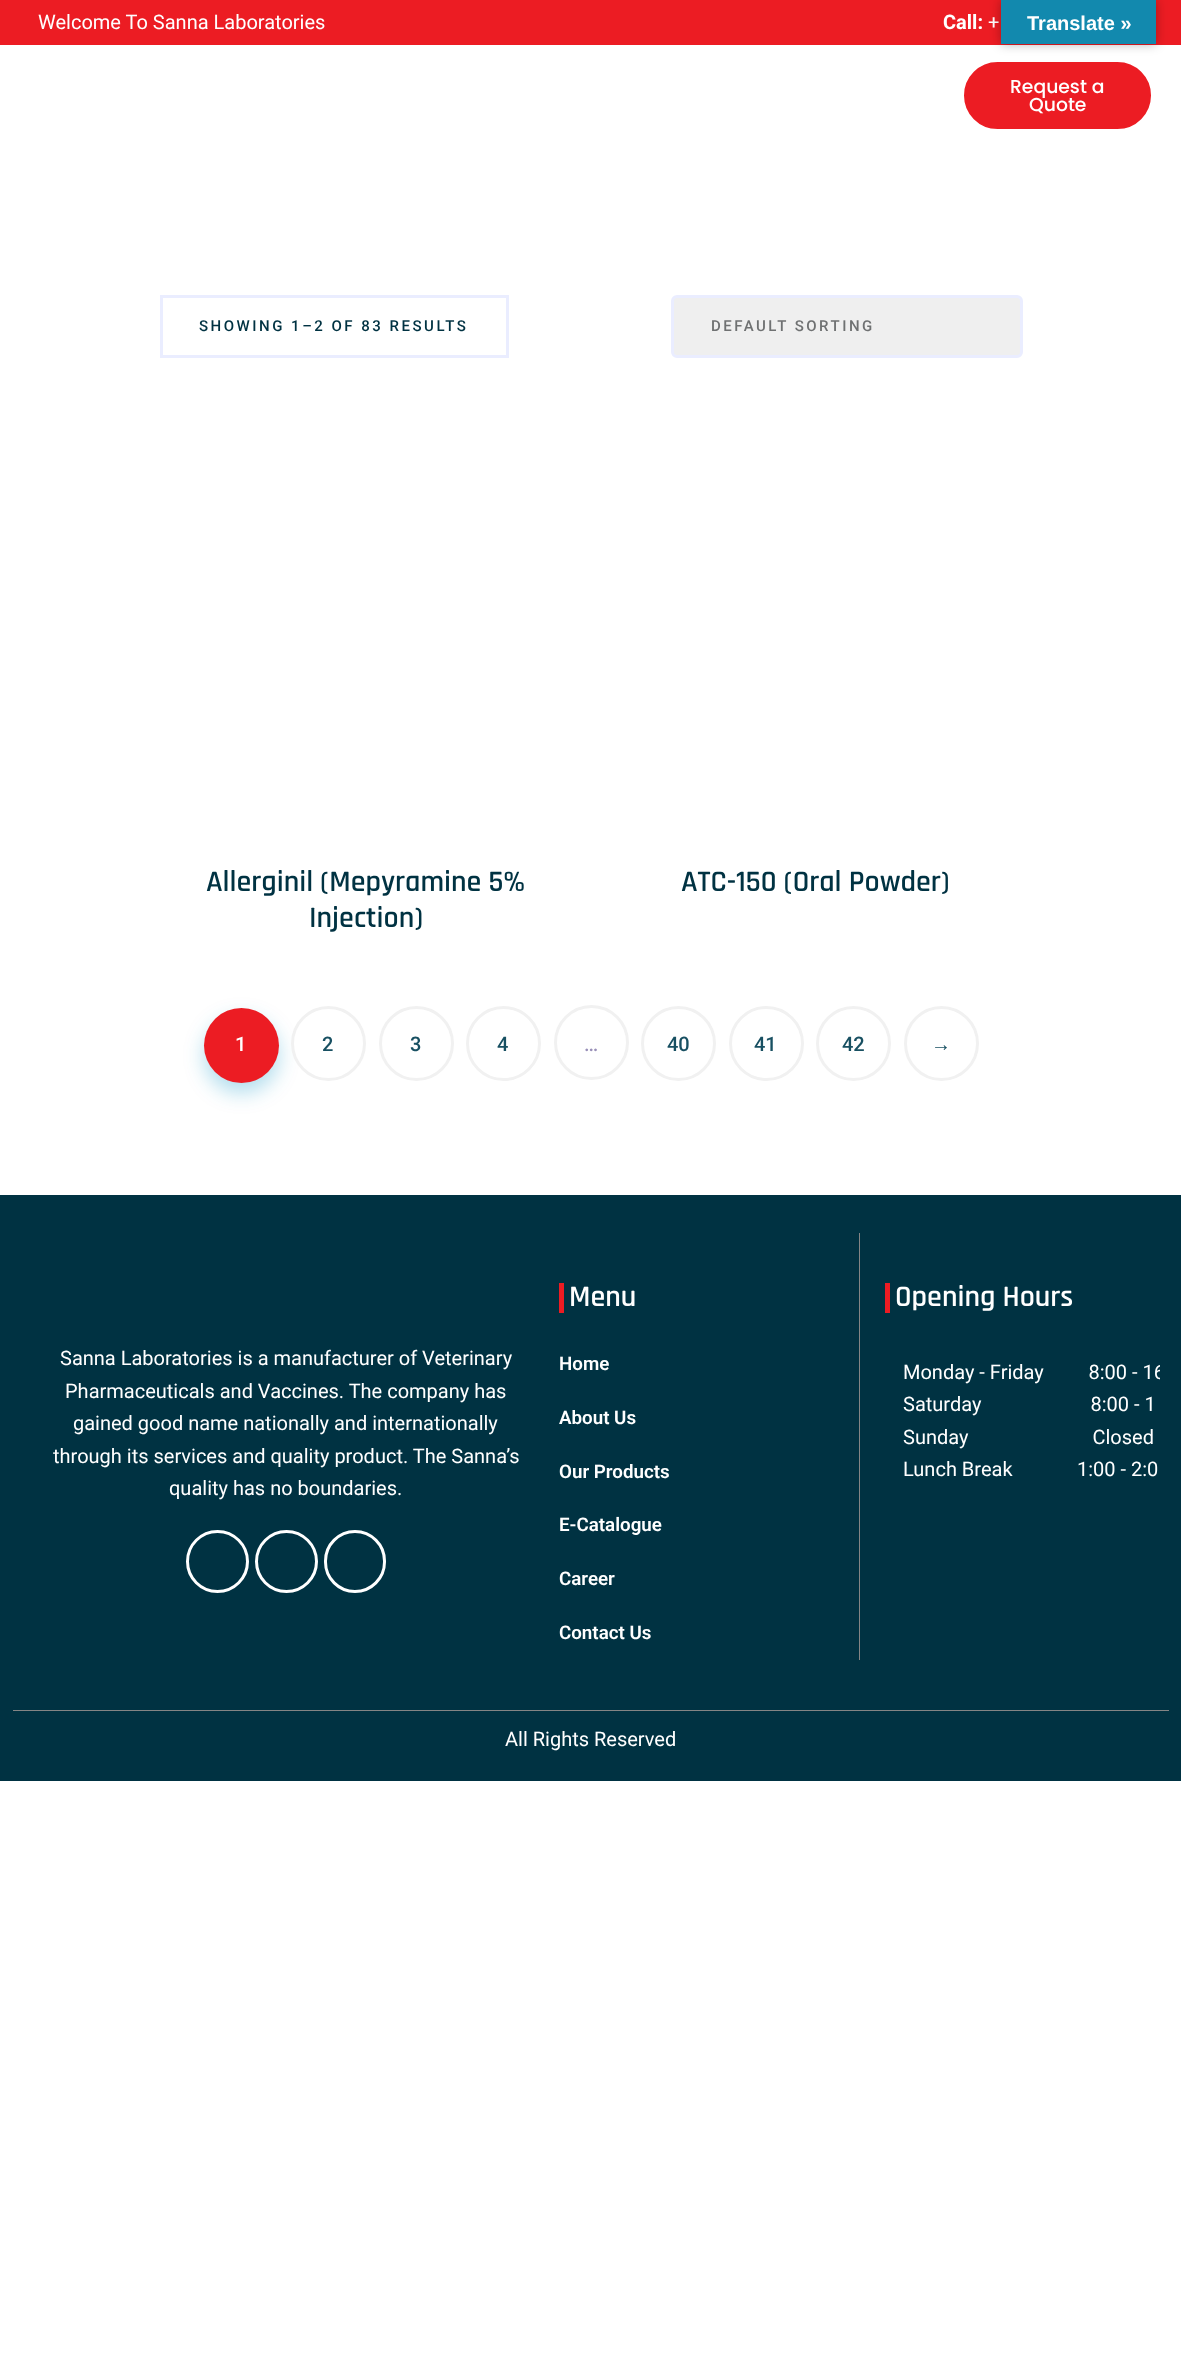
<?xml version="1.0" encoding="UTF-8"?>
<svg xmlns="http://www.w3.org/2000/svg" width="1181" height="2378">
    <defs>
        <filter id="blur1" x="-50%" y="-200%" width="200%" height="500%"><feGaussianBlur stdDeviation="10"/></filter>
        <clipPath id="clip1"><rect x="885" y="1338" width="275" height="200"/></clipPath>
        <filter id="blur2" x="-50%" y="-200%" width="200%" height="500%"><feGaussianBlur stdDeviation="5.5"/></filter>
    </defs>
    <rect width="100%" height="100%" fill="#FFFFFF"/>
    <rect x="0" y="0" width="1181" height="45" fill="#EC1C23"/>
    <text x="38" y="29" font-family="Roboto" font-size="20" fill="#FFFFFF">Welcome To Sanna Laboratories</text>
    <text x="943" y="29" font-family="Roboto" font-size="20" font-weight="700" fill="#FFFFFF">Call:</text>
    <text x="988" y="29" font-family="Roboto" font-size="20" fill="#FFFFFF">+</text>
    <rect x="962" y="60" width="191" height="71" rx="35.5" fill="#EC1C23" stroke="#FFFFFF" stroke-width="4"/>
    <text x="1010" y="93" font-family="Poppins" font-size="18.75" font-weight="500" fill="#FFFFFF">Request a</text>
    <text x="1029" y="111" font-family="Poppins" font-size="18.75" font-weight="500" fill="#FFFFFF">Quote</text>
    <rect x="161.5" y="296.5" width="346" height="60" fill="none" stroke="#EAEDFF" stroke-width="3"/>
    <text x="199" y="331" font-family="Roboto" font-size="15" font-weight="500" letter-spacing="2.5" fill="#003242">SHOWING 1–2 OF 83 RESULTS</text>
    <rect x="672.5" y="296.5" width="349" height="60" rx="4.5" fill="#EFEFEF" stroke="#EAEDFF" stroke-width="3"/>
    <text x="711" y="331" font-family="Roboto" font-size="15" font-weight="500" letter-spacing="2.5" fill="#6F7172">DEFAULT SORTING</text>
    <text x="206" y="891" font-family="Rajdhani" font-size="30" font-weight="600" fill="#003242">Allerginil (Mepyramine 5%</text>
    <text x="309" y="927" font-family="Rajdhani" font-size="30" font-weight="600" fill="#003242">Injection)</text>
    <text x="681" y="891" font-family="Rajdhani" font-size="30" font-weight="600" fill="#003242">ATC-150 (Oral Powder)</text>
    <rect x="204" y="1018" width="75" height="75" rx="37.5" fill="#048EC5" fill-opacity="0.3" filter="url(#blur1)"/>
    <circle cx="241.5" cy="1045.5" r="37.5" fill="#EC1C23"/>
    <text x="235" y="1051" font-family="Roboto" font-size="20" font-weight="500" fill="#FFFFFF">1</text>
    <circle cx="328.5" cy="1043.5" r="36" fill="#FFFFFF" stroke="#F1F1F1" stroke-width="3"/>
    <text x="322" y="1051" font-family="Roboto" font-size="20" font-weight="500" fill="#185062">2</text>
    <circle cx="416.5" cy="1043.5" r="36" fill="none" stroke="#F1F1F1" stroke-width="3"/>
    <text x="410" y="1051" font-family="Roboto" font-size="20" font-weight="500" fill="#185062">3</text>
    <circle cx="503.5" cy="1043.5" r="36" fill="none" stroke="#F1F1F1" stroke-width="3"/>
    <text x="497" y="1051" font-family="Roboto" font-size="20" font-weight="500" fill="#185062">4</text>
    <circle cx="591.5" cy="1042.5" r="36" fill="none" stroke="#F1F1F1" stroke-width="3"/>
    <text x="584" y="1051" font-family="Roboto" font-size="20" font-weight="500" fill="#9990B8">…</text>
    <circle cx="678.5" cy="1043.5" r="36" fill="none" stroke="#F1F1F1" stroke-width="3"/>
    <text x="667" y="1051" font-family="Roboto" font-size="20" font-weight="500" fill="#185062">40</text>
    <circle cx="766.5" cy="1043.5" r="36" fill="none" stroke="#F1F1F1" stroke-width="3"/>
    <text x="754" y="1051" font-family="Roboto" font-size="20" font-weight="500" fill="#185062">41</text>
    <circle cx="853.5" cy="1043.5" r="36" fill="none" stroke="#F1F1F1" stroke-width="3"/>
    <text x="842" y="1051" font-family="Roboto" font-size="20" font-weight="500" fill="#185062">42</text>
    <circle cx="941.5" cy="1043.5" r="36" fill="none" stroke="#F1F1F1" stroke-width="3"/>
    <text x="931" y="1051" font-family="Liberation Sans" font-size="20" fill="#185062">→</text>
    <rect x="0" y="1195" width="1181" height="586" fill="#003242"/>
    <text x="60" y="1365" font-family="Roboto" font-size="20" fill="#FFFFFF">Sanna Laboratories is a manufacturer of Veterinary</text>
    <text x="65" y="1398" font-family="Roboto" font-size="20" fill="#FFFFFF">Pharmaceuticals and Vaccines. The company has</text>
    <text x="73" y="1430" font-family="Roboto" font-size="20" fill="#FFFFFF">gained good name nationally and internationally</text>
    <text x="53" y="1463" font-family="Roboto" font-size="20" fill="#FFFFFF">through its services and quality product. The Sanna’s</text>
    <text x="169" y="1495" font-family="Roboto" font-size="20" fill="#FFFFFF">quality has no boundaries.</text>
    <circle cx="217.5" cy="1561.5" r="30" fill="none" stroke="#FFFFFF" stroke-width="3"/>
    <circle cx="286.5" cy="1561.5" r="30" fill="none" stroke="#FFFFFF" stroke-width="3"/>
    <rect x="325.5" y="1531.5" width="59" height="60" rx="29.5" fill="none" stroke="#FFFFFF" stroke-width="3"/>
    <rect x="859" y="1233" width="1" height="427" fill="#858585"/>
    <rect x="559" y="1283" width="5" height="30" fill="#EC1C23"/>
    <text x="569" y="1306" font-family="Rajdhani" font-size="30" font-weight="600" fill="#FFFFFF">Menu</text>
    <text x="559" y="1370" font-family="Roboto" font-size="18.75" font-weight="600" fill="#FFFFFF">Home</text>
    <text x="559" y="1424" font-family="Roboto" font-size="18.75" font-weight="600" fill="#FFFFFF">About Us</text>
    <text x="559" y="1478" font-family="Roboto" font-size="18.75" font-weight="600" fill="#FFFFFF">Our Products</text>
    <text x="559" y="1531" font-family="Roboto" font-size="18.75" font-weight="600" fill="#FFFFFF">E-Catalogue</text>
    <text x="559" y="1585" font-family="Roboto" font-size="18.75" font-weight="600" fill="#FFFFFF">Career</text>
    <text x="559" y="1639" font-family="Roboto" font-size="18.75" font-weight="600" fill="#FFFFFF">Contact Us</text>
    <rect x="885" y="1283" width="5" height="30" fill="#EC1C23"/>
    <text x="895" y="1306" font-family="Rajdhani" font-size="30" font-weight="600" fill="#FFFFFF">Opening Hours</text>
    <g clip-path="url(#clip1)">
        <text x="903" y="1379" font-family="Roboto" font-size="20" fill="#FFFFFF" xml:space="preserve">Monday - Friday         8:00 - 16</text>
    </g>
    <text font-family="Roboto" font-size="20" fill="#FFFFFF" xml:space="preserve"><tspan x="903" y="1411">Saturday                      8:00 - 1</tspan><tspan x="903" y="1444">Sunday                         Closed</tspan><tspan x="903" y="1476">Lunch Break             1:00 - 2:0</tspan></text>
    <rect x="13" y="1710" width="1156" height="1" fill="#858585"/>
    <text x="505" y="1746" font-family="Roboto" font-size="20" fill="#FFFFFF">All Rights Reserved</text>
    <rect x="1001" y="0" width="155" height="44" fill="#000000" fill-opacity="0.3" filter="url(#blur2)"/>
    <rect x="1001" y="0" width="155" height="44" fill="#1289AE"/>
    <text x="1027" y="30" font-family="Liberation Sans" font-size="20" font-weight="700" fill="#FFFFFF">Translate »</text>
</svg>
